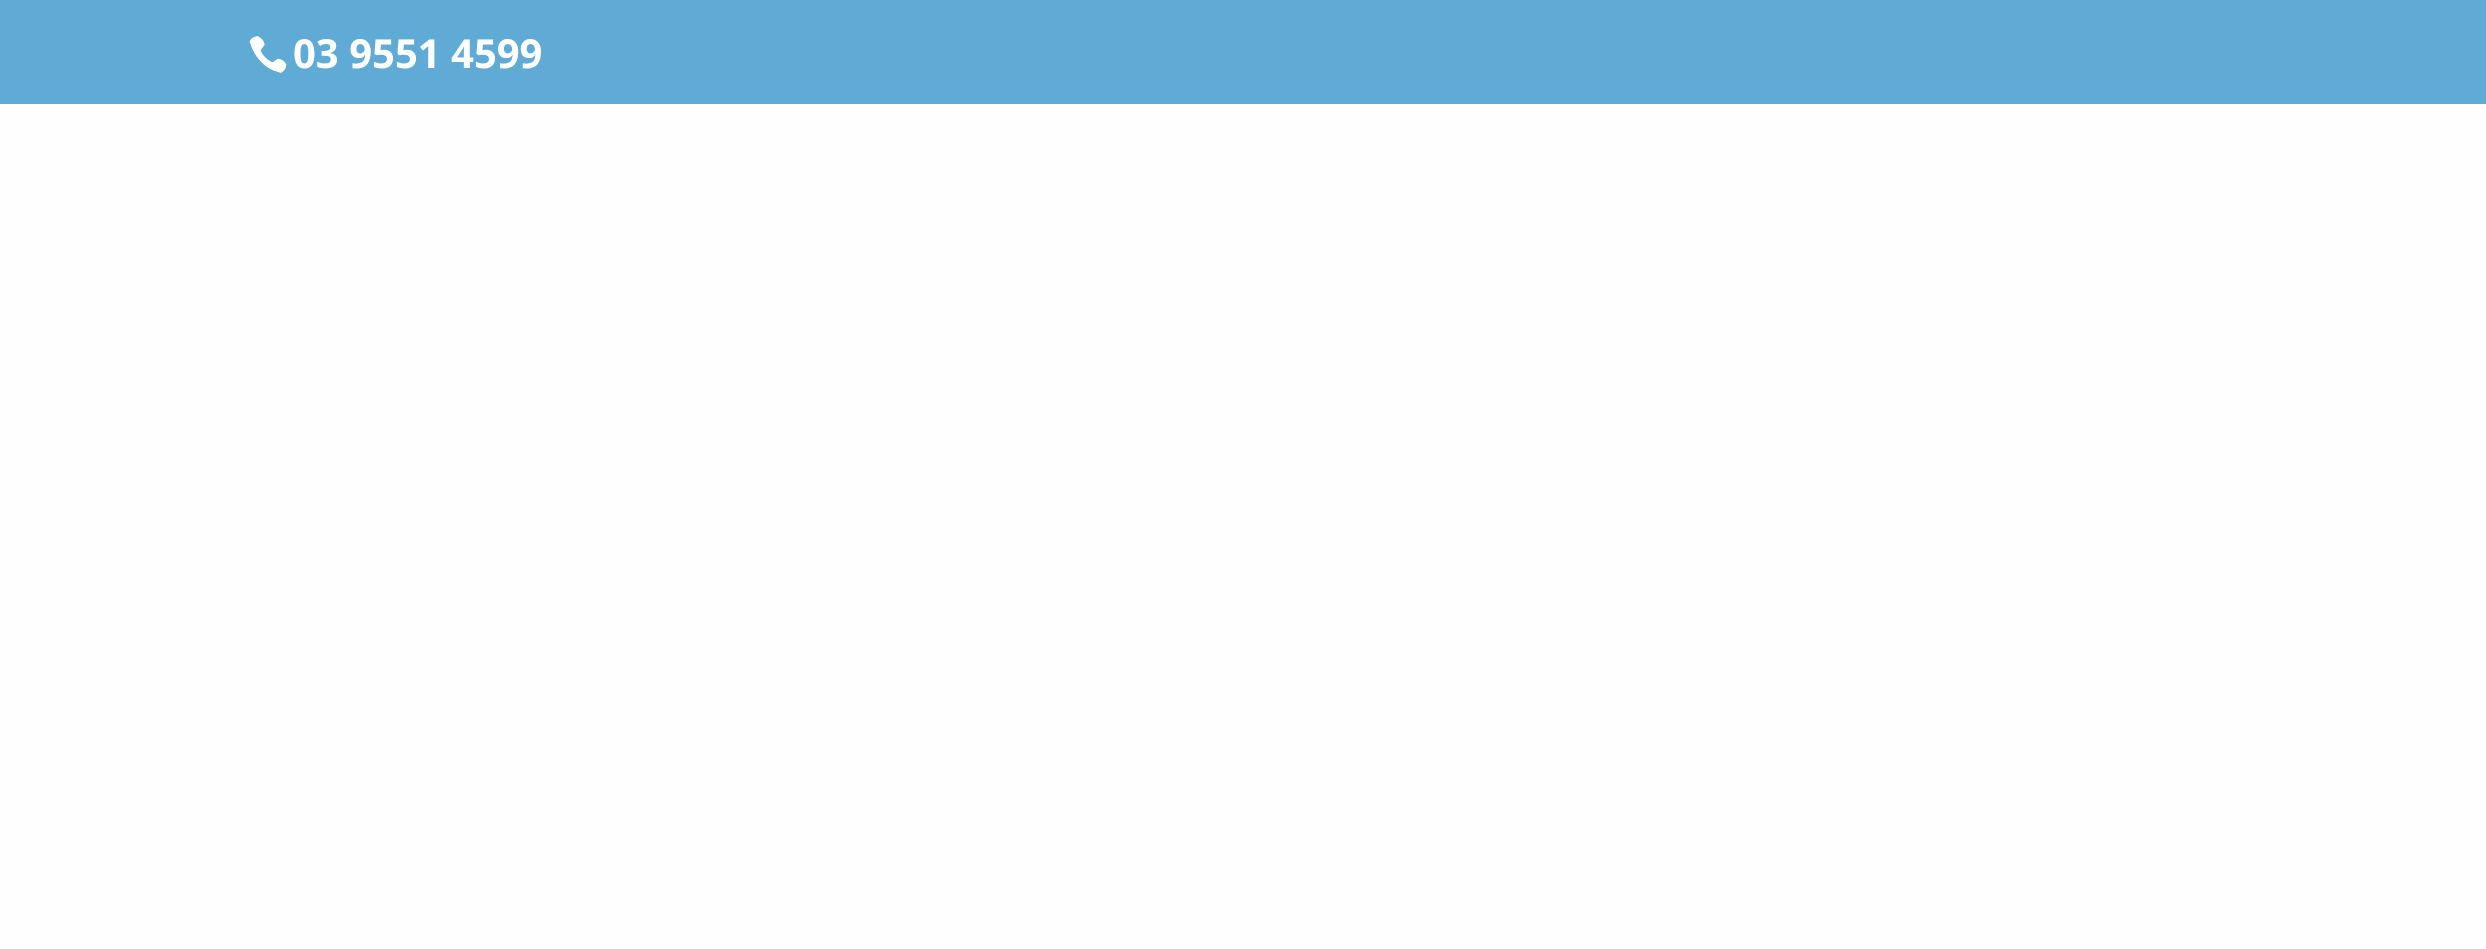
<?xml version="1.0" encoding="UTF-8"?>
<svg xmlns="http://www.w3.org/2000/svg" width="2486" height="949">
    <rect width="100%" height="100%" fill="#FEFEFE"/>
    <rect x="0" y="0" width="2486" height="104" fill="#60ABD6"/>
    <image x="249" y="36" width="38" height="37" href="img_01.png"/>
    <text x="293" y="68" font-family="Open Sans" font-size="40" font-weight="700" fill="#FFFFFF">03 9551 4599</text>
</svg>
